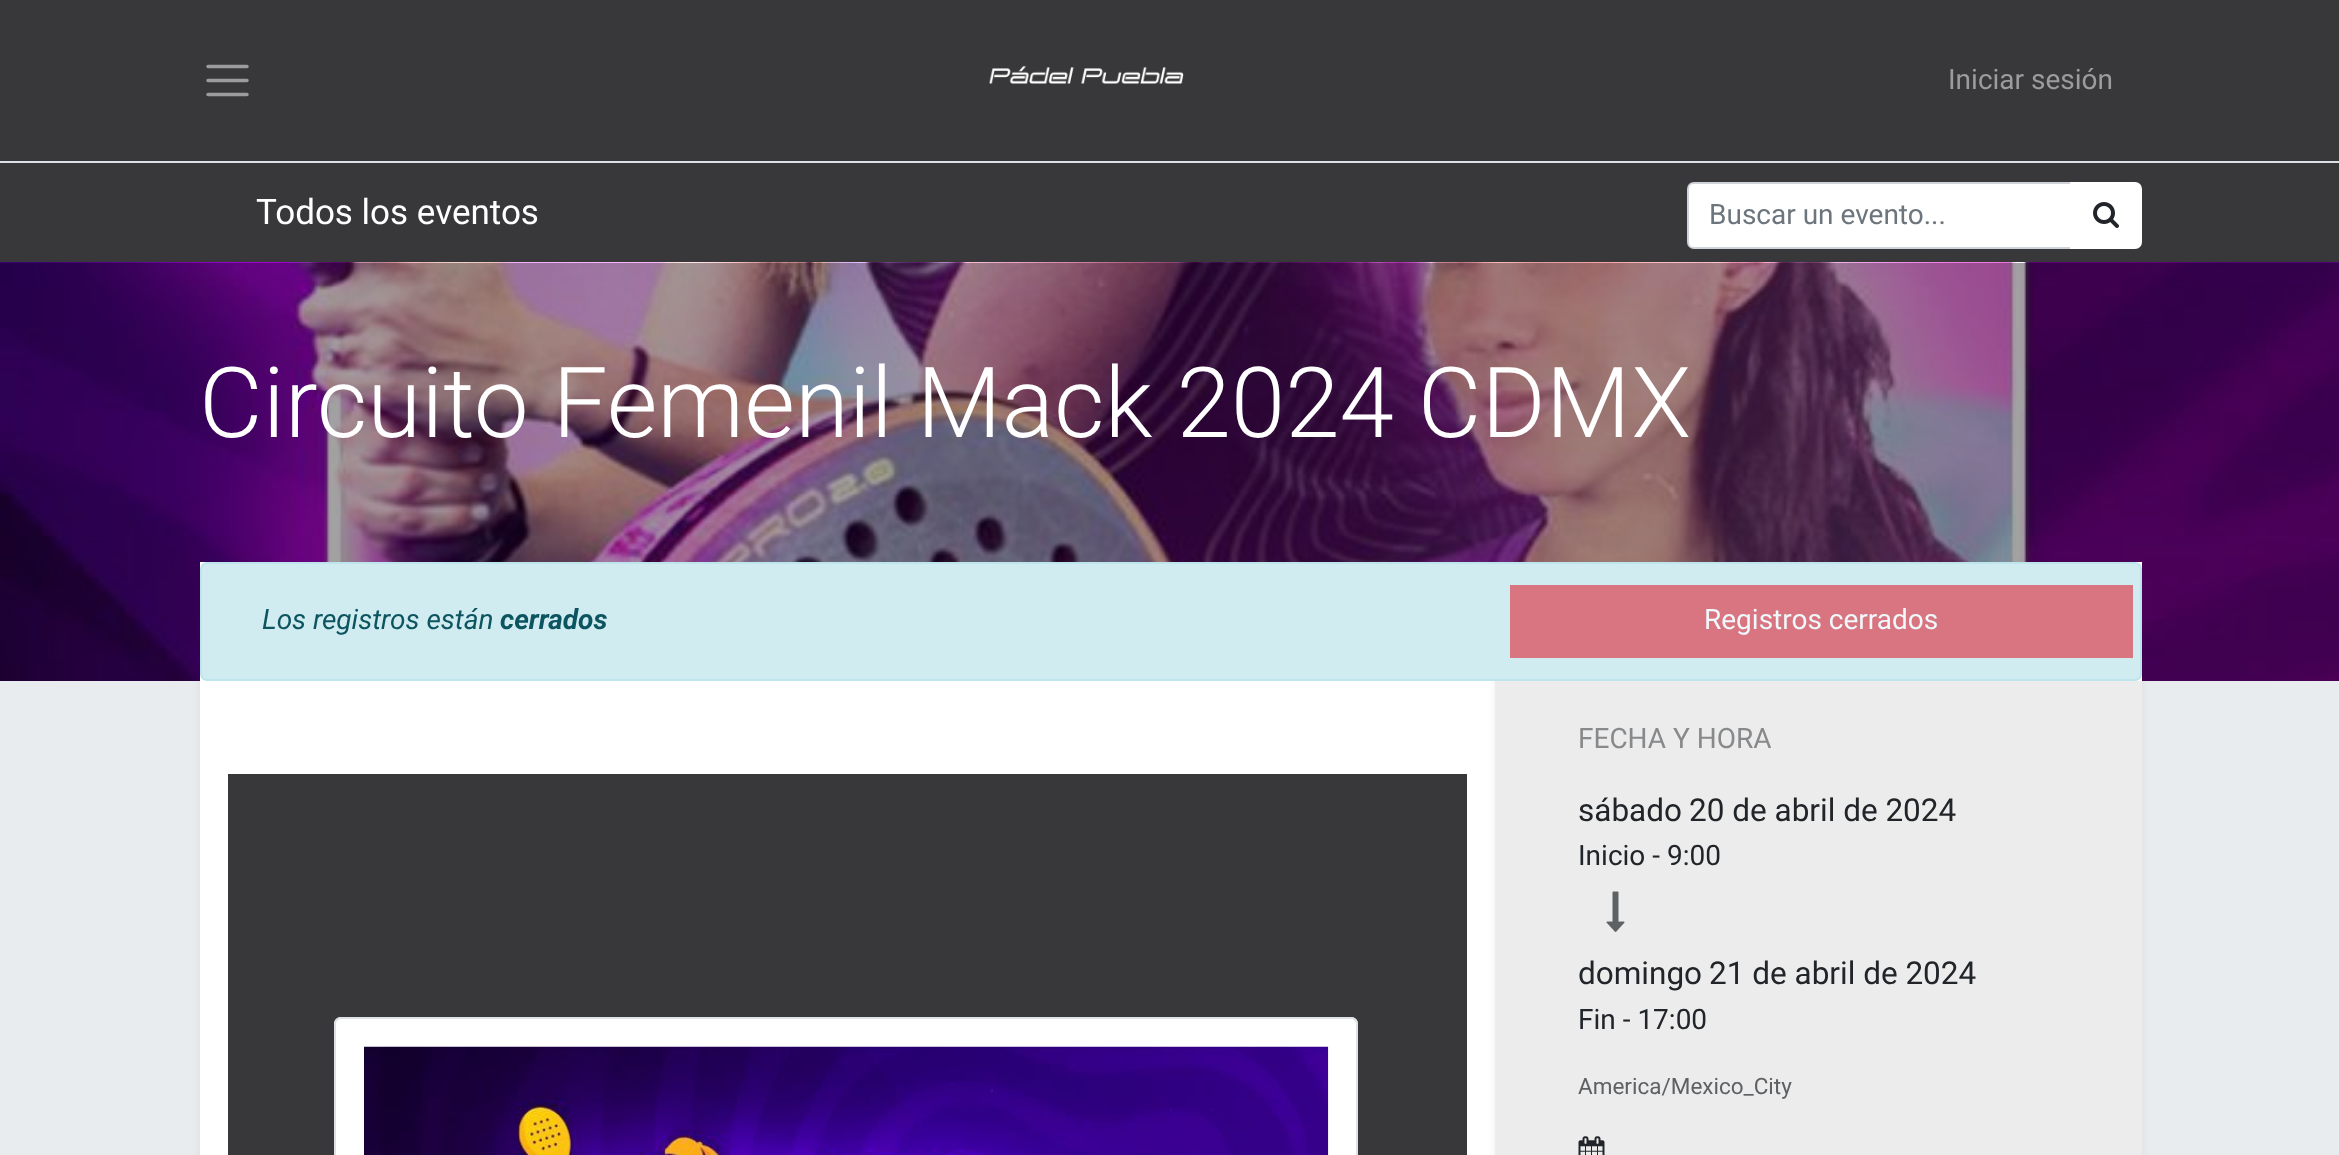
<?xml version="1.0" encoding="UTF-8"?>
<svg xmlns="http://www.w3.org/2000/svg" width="2339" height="1155">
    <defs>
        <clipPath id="clip1"><rect x="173" y="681" width="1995" height="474"/></clipPath>
        <filter id="blur1" x="-50%" y="-200%" width="200%" height="500%"><feGaussianBlur stdDeviation="3.5"/></filter>
    </defs>
    <rect width="100%" height="100%" fill="#38383B"/>
    <path d="M 208 66.5 H 247 M 208 80.5 H 247 M 208 94.5 H 247" fill="none" stroke="#9C9C9D" stroke-width="3.5" stroke-linecap="round"/>
    <image x="989" y="65" width="195" height="19" href="img_01.png"/>
    <text x="1948" y="89" font-family="Roboto" font-size="28" fill="#9C9C9D">Iniciar sesión</text>
    <rect x="0" y="161" width="2339" height="2" fill="#DEE2E6"/>
    <text x="256" y="224" font-family="Roboto" font-size="35" fill="#FFFFFF">Todos los eventos</text>
    <path d="M 1694 183 H 2071 V 248 H 1694 C 1690.5 248 1688 245.5 1688 242 V 189 C 1688 185.5 1690.5 183 1694 183 Z" fill="#FFFFFF" stroke="#CED4DA" stroke-width="2"/>
    <text x="1709" y="224" font-family="Roboto" font-size="28" fill="#6C757D">Buscar un evento...</text>
    <path d="M 2071 183 H 2135 C 2138.5 183 2141 185.5 2141 189 V 242 C 2141 245.5 2138.5 248 2135 248 H 2071 Z" fill="#FFFFFF" stroke="#FFFFFF" stroke-width="2"/>
    <image x="2093" y="202" width="26" height="26" href="img_02.png"/>
    <image x="0" y="262" width="2339" height="419" href="img_03.png"/>
    <text x="199" y="437" font-family="Roboto" font-size="98" font-weight="300" fill="#FFFFFF">Circuito Femenil Mack 2024 CDMX</text>
    <rect x="200" y="562" width="1942" height="119" fill="#FFFFFF"/>
    <rect x="201" y="563" width="1940" height="117" rx="6" fill="#D1ECF1" stroke="#BEE5EB" stroke-width="2"/>
    <text x="262" y="629" font-family="Roboto" font-size="28" font-style="italic" fill="#0C5460">Los registros están</text>
    <text x="500" y="629" font-family="Roboto" font-size="28" font-weight="700" font-style="italic" fill="#0C5460">cerrados</text>
    <rect x="1510" y="585" width="623" height="73" fill="#D87581"/>
    <text x="1704" y="629" font-family="Roboto" font-size="28" fill="#EFF8FA">Registros cerrados</text>
    <rect x="0" y="681" width="2339" height="474" fill="#E9ECEF"/>
    <g clip-path="url(#clip1)">
        <rect x="200" y="642" width="1295" height="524" fill="#000000" fill-opacity="0.07" filter="url(#blur1)"/>
    </g>
    <rect x="200" y="681" width="1295" height="474" fill="#FFFFFF"/>
    <rect x="228" y="774" width="1239" height="381" fill="#38383B"/>
    <path d="M 341 1017 H 1351 C 1355 1017 1358 1020 1358 1024 V 1155 H 334 V 1024 C 334 1020 337 1017 341 1017 Z" fill="#FFFFFF"/>
    <rect x="335" y="1018" width="1022" height="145" rx="6" fill="none" stroke="#DEE2E6" stroke-width="2"/>
    <image x="364" y="1046" width="965" height="109" href="img_04.png"/>
    <g clip-path="url(#clip1)">
        <rect x="1495" y="642" width="647" height="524" fill="#000000" fill-opacity="0.07" filter="url(#blur1)"/>
    </g>
    <rect x="1495" y="681" width="647" height="474" fill="#ECECEC"/>
    <text x="1578" y="748" font-family="Roboto" font-size="28" fill="#87898B">FECHA Y HORA</text>
    <text x="1578" y="821" font-family="Roboto" font-size="31.5" fill="#212529">sábado</text>
    <text x="1689" y="821" font-family="Roboto" font-size="31.5" fill="#212529">20 de abril de 2024</text>
    <text x="1578" y="865" font-family="Roboto" font-size="28" fill="#212529">Inicio - 9:00</text>
    <image x="1606" y="891" width="19" height="41" href="img_05.png"/>
    <text x="1578" y="984" font-family="Roboto" font-size="31.5" fill="#212529">domingo</text>
    <text x="1709" y="984" font-family="Roboto" font-size="31.5" fill="#212529">21 de abril de 2024</text>
    <text x="1578" y="1029" font-family="Roboto" font-size="28" fill="#212529">Fin - 17:00</text>
    <text x="1578" y="1094" font-family="Roboto" font-size="22.5" fill="#5E6164">America/Mexico_City</text>
    <image x="1578" y="1136" width="27" height="19" href="img_06.png"/>
</svg>
